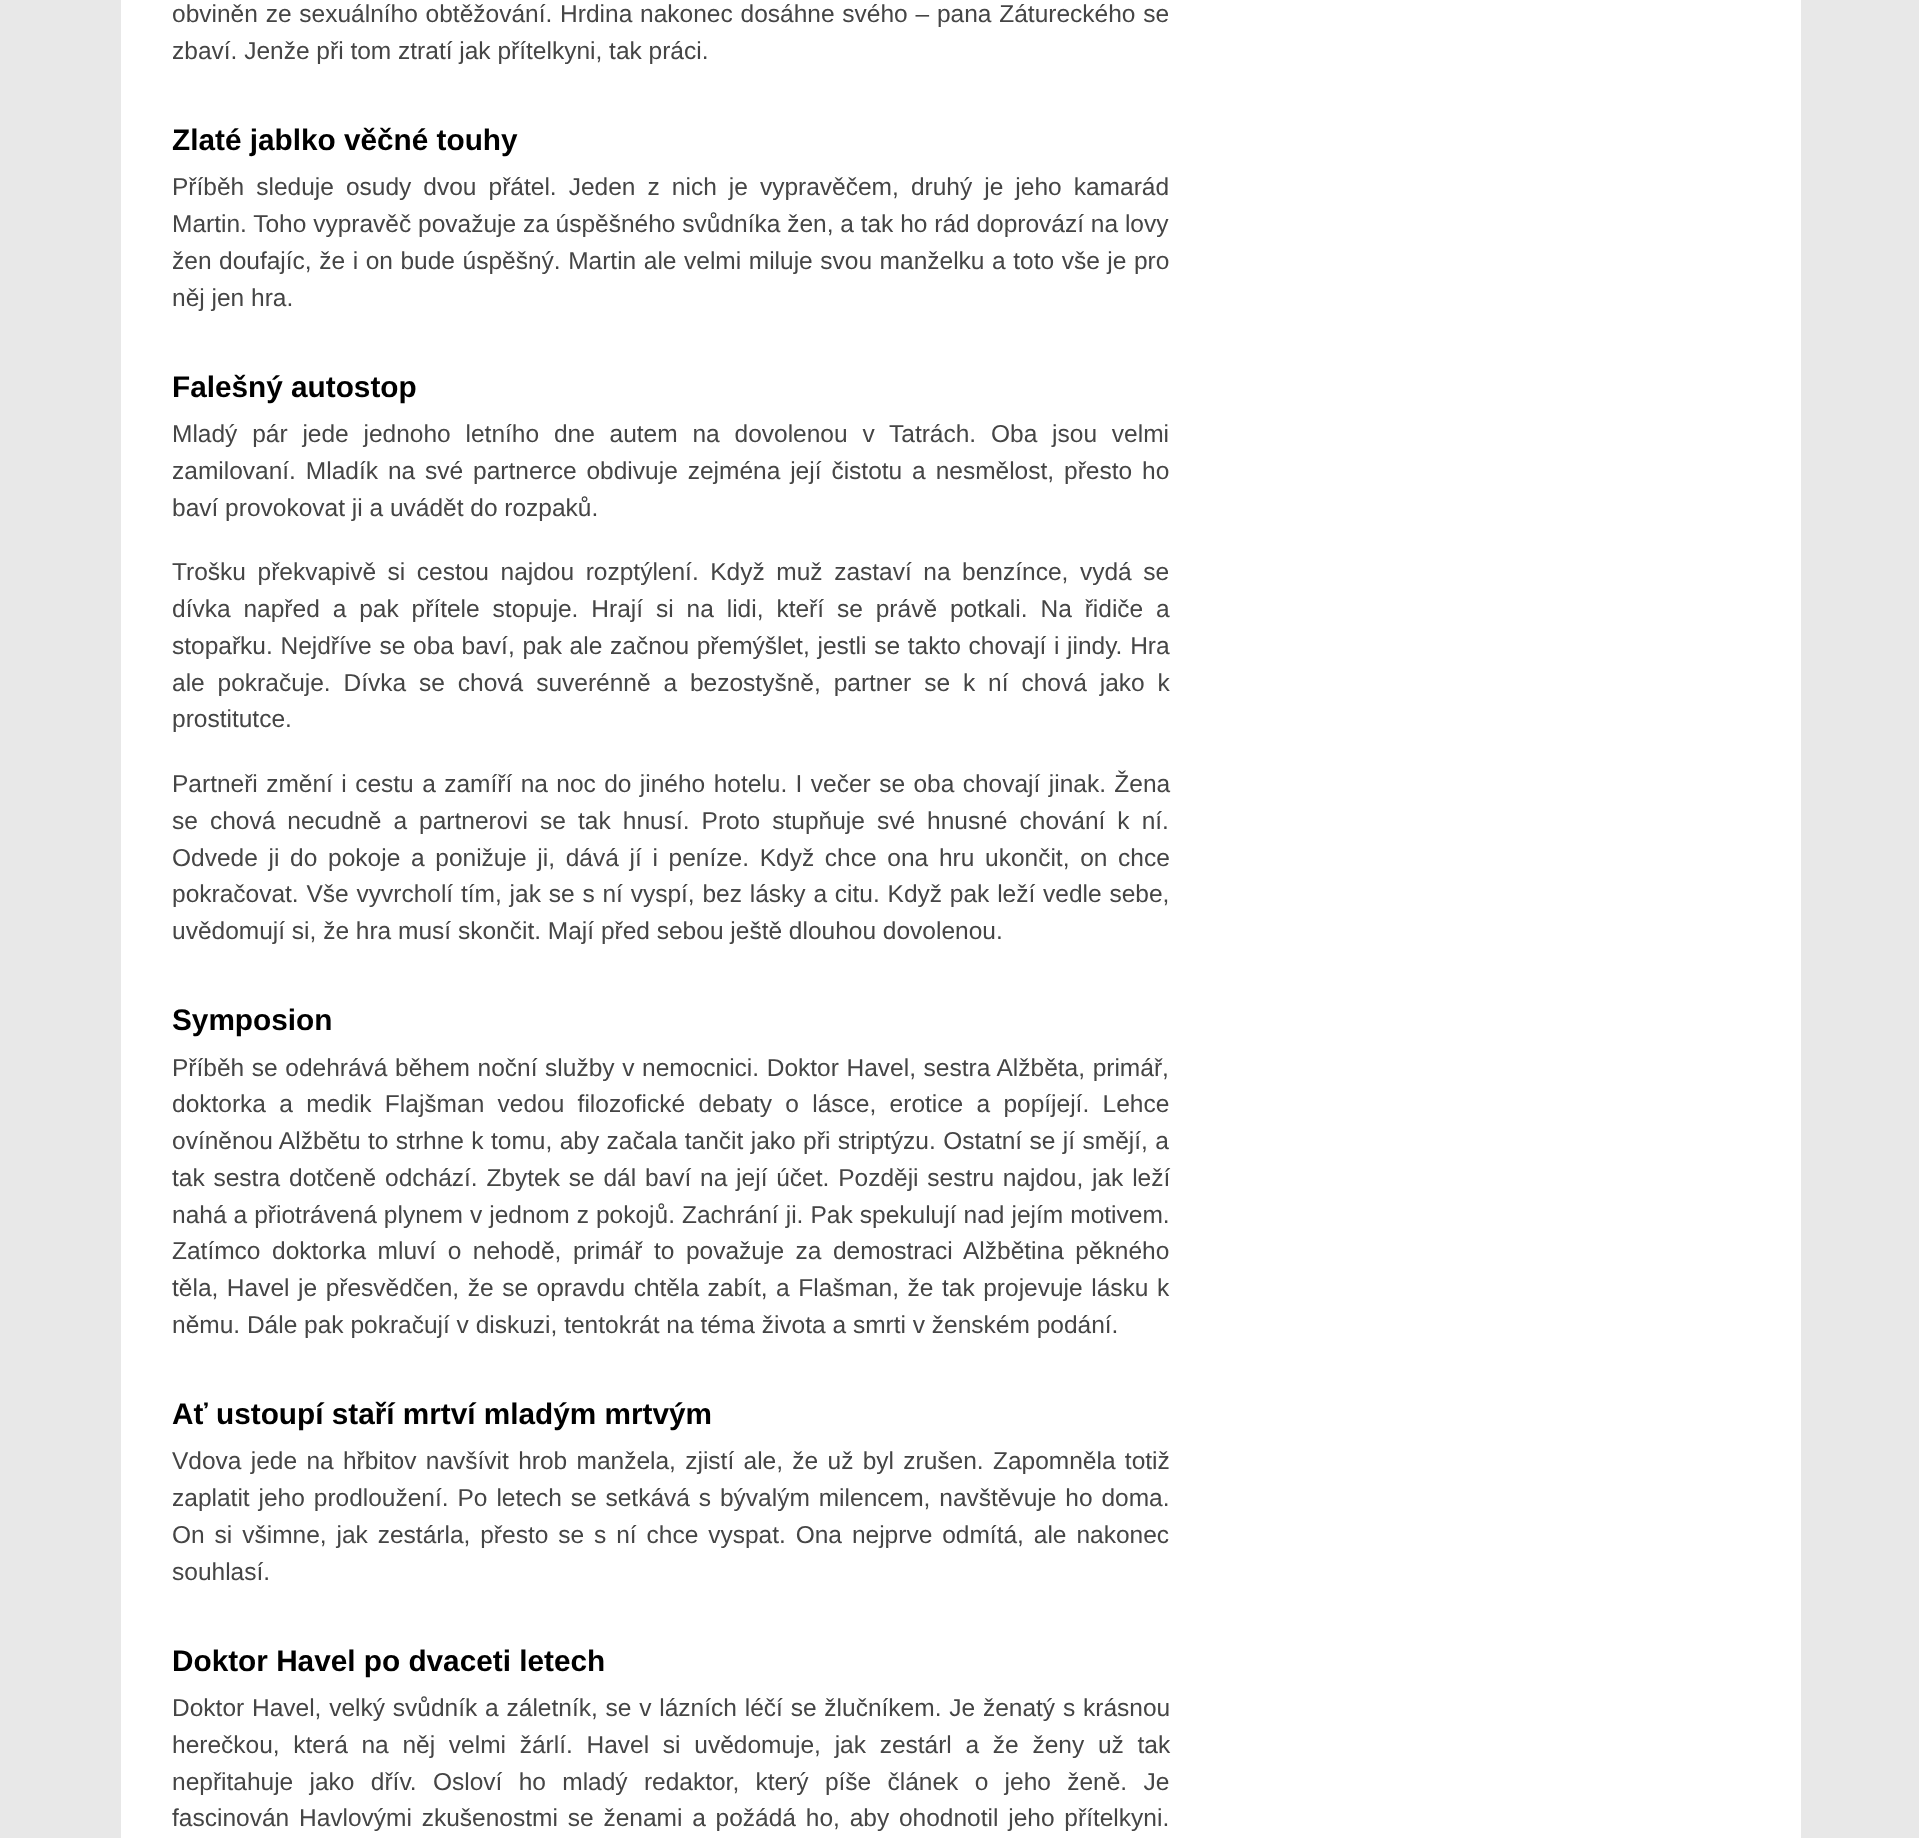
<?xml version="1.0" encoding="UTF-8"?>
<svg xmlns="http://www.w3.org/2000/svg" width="1919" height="1838">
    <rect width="100%" height="100%" fill="#E8E8E8"/>
    <rect x="121" y="0" width="1680" height="1838" fill="#FFFFFF"/>
    <text font-family="Liberation Sans" font-size="24.5" fill="#454545">
        <tspan x="172" y="22" word-spacing="1">obviněn ze sexuálního obtěžování. Hrdina nakonec dosáhne svého – pana Zátureckého se</tspan>
        <tspan x="172" y="59">zbaví. Jenže při tom ztratí jak přítelkyni, tak práci.</tspan>
    </text>
    <text x="172" y="150" font-family="Liberation Sans" font-size="29.75" font-weight="700" fill="#000000">Zlaté jablko věčné touhy</text>
    <text font-family="Liberation Sans" font-size="24.5" fill="#454545">
        <tspan x="172" y="195" word-spacing="5.25">Příběh sleduje osudy dvou přátel. Jeden z nich je vypravěčem, druhý je jeho kamarád</tspan>
        <tspan x="172" y="232">Martin. Toho vypravěč považuje za úspěšného svůdníka žen, a tak ho rád doprovází na lovy</tspan>
        <tspan x="172" y="269" word-spacing="0.75">žen doufajíc, že i on bude úspěšný. Martin ale velmi miluje svou manželku a toto vše je pro</tspan>
        <tspan x="172" y="306">něj jen hra.</tspan>
    </text>
    <text x="172" y="397" font-family="Liberation Sans" font-size="29.75" font-weight="700" fill="#000000">Falešný autostop</text>
    <text font-family="Liberation Sans" font-size="24.5" fill="#454545">
        <tspan x="172" y="442" word-spacing="8">Mladý pár jede jednoho letního dne autem na dovolenou v Tatrách. Oba jsou velmi</tspan>
        <tspan x="172" y="479" word-spacing="3.1">zamilovaní. Mladík na své partnerce obdivuje zejména její čistotu a nesmělost, přesto ho</tspan>
        <tspan x="172" y="516">baví provokovat ji a uvádět do rozpaků.</tspan>
    </text>
    <text font-family="Liberation Sans" font-size="24.5" fill="#454545">
        <tspan x="172" y="580" word-spacing="4.75">Trošku překvapivě si cestou najdou rozptýlení. Když muž zastaví na benzínce, vydá se</tspan>
        <tspan x="172" y="617" word-spacing="6.1">dívka napřed a pak přítele stopuje. Hrají si na lidi, kteří se právě potkali. Na řidiče a</tspan>
        <tspan x="172" y="654" word-spacing="0.9">stopařku. Nejdříve se oba baví, pak ale začnou přemýšlet, jestli se takto chovají i jindy. Hra</tspan>
        <tspan x="172" y="691" word-spacing="6.1">ale pokračuje. Dívka se chová suverénně a bezostyšně, partner se k ní chová jako k</tspan>
        <tspan x="172" y="727">prostitutce.</tspan>
    </text>
    <text font-family="Liberation Sans" font-size="24.5" fill="#454545">
        <tspan x="172" y="792" word-spacing="1.6">Partneři změní i cestu a zamíří na noc do jiného hotelu. I večer se oba chovají jinak. Žena</tspan>
        <tspan x="172" y="829" word-spacing="5.25">se chová necudně a partnerovi se tak hnusí. Proto stupňuje své hnusné chování k ní.</tspan>
        <tspan x="172" y="866" word-spacing="3.9">Odvede ji do pokoje a ponižuje ji, dává jí i peníze. Když chce ona hru ukončit, on chce</tspan>
        <tspan x="172" y="902" word-spacing="1">pokračovat. Vše vyvrcholí tím, jak se s ní vyspí, bez lásky a citu. Když pak leží vedle sebe,</tspan>
        <tspan x="172" y="939">uvědomují si, že hra musí skončit. Mají před sebou ještě dlouhou dovolenou.</tspan>
    </text>
    <text x="172" y="1030" font-family="Liberation Sans" font-size="29.75" font-weight="700" fill="#000000">Symposion</text>
    <text font-family="Liberation Sans" font-size="24.5" fill="#454545">
        <tspan x="172" y="1076" word-spacing="0.8">Příběh se odehrává během noční služby v nemocnici. Doktor Havel, sestra Alžběta, primář,</tspan>
        <tspan x="172" y="1112" word-spacing="6.5">doktorka a medik Flajšman vedou filozofické debaty o lásce, erotice a popíjejí. Lehce</tspan>
        <tspan x="172" y="1149" word-spacing="0.6">ovíněnou Alžbětu to strhne k tomu, aby začala tančit jako při striptýzu. Ostatní se jí smějí, a</tspan>
        <tspan x="172" y="1186" word-spacing="2">tak sestra dotčeně odchází. Zbytek se dál baví na její účet. Později sestru najdou, jak leží</tspan>
        <tspan x="172" y="1223" word-spacing="0.25">nahá a přiotrávená plynem v jednom z pokojů. Zachrání ji. Pak spekulují nad jejím motivem.</tspan>
        <tspan x="172" y="1259" word-spacing="4.75">Zatímco doktorka mluví o nehodě, primář to považuje za demostraci Alžbětina pěkného</tspan>
        <tspan x="172" y="1296" word-spacing="1.75">těla, Havel je přesvědčen, že se opravdu chtěla zabít, a Flašman, že tak projevuje lásku k</tspan>
        <tspan x="172" y="1333">němu. Dále pak pokračují v diskuzi, tentokrát na téma života a smrti v ženském podání.</tspan>
    </text>
    <text x="172" y="1424" font-family="Liberation Sans" font-size="29.75" font-weight="700" fill="#000000">Ať ustoupí staří mrtví mladým mrtvým</text>
    <text font-family="Liberation Sans" font-size="24.5" fill="#454545">
        <tspan x="172" y="1469" word-spacing="2.5">Vdova jede na hřbitov navšívit hrob manžela, zjistí ale, že už byl zrušen. Zapomněla totiž</tspan>
        <tspan x="172" y="1506" word-spacing="2.1">zaplatit jeho prodloužení. Po letech se setkává s bývalým milencem, navštěvuje ho doma.</tspan>
        <tspan x="172" y="1543" word-spacing="3.1">On si všimne, jak zestárla, přesto se s ní chce vyspat. Ona nejprve odmítá, ale nakonec</tspan>
        <tspan x="172" y="1580">souhlasí.</tspan>
    </text>
    <text x="172" y="1671" font-family="Liberation Sans" font-size="29.75" font-weight="700" fill="#000000">Doktor Havel po dvaceti letech</text>
    <text font-family="Liberation Sans" font-size="24.5" fill="#454545">
        <tspan x="172" y="1716" word-spacing="1">Doktor Havel, velký svůdník a záletník, se v lázních léčí se žlučníkem. Je ženatý s krásnou</tspan>
        <tspan x="172" y="1753" word-spacing="6.9">herečkou, která na něj velmi žárlí. Havel si uvědomuje, jak zestárl a že ženy už tak</tspan>
        <tspan x="172" y="1790" word-spacing="9.5">nepřitahuje jako dřív. Osloví ho mladý redaktor, který píše článek o jeho ženě. Je</tspan>
        <tspan x="172" y="1826" word-spacing="3">fascinován Havlovými zkušenostmi se ženami a požádá ho, aby ohodnotil jeho přítelkyni.</tspan>
    </text>
</svg>
